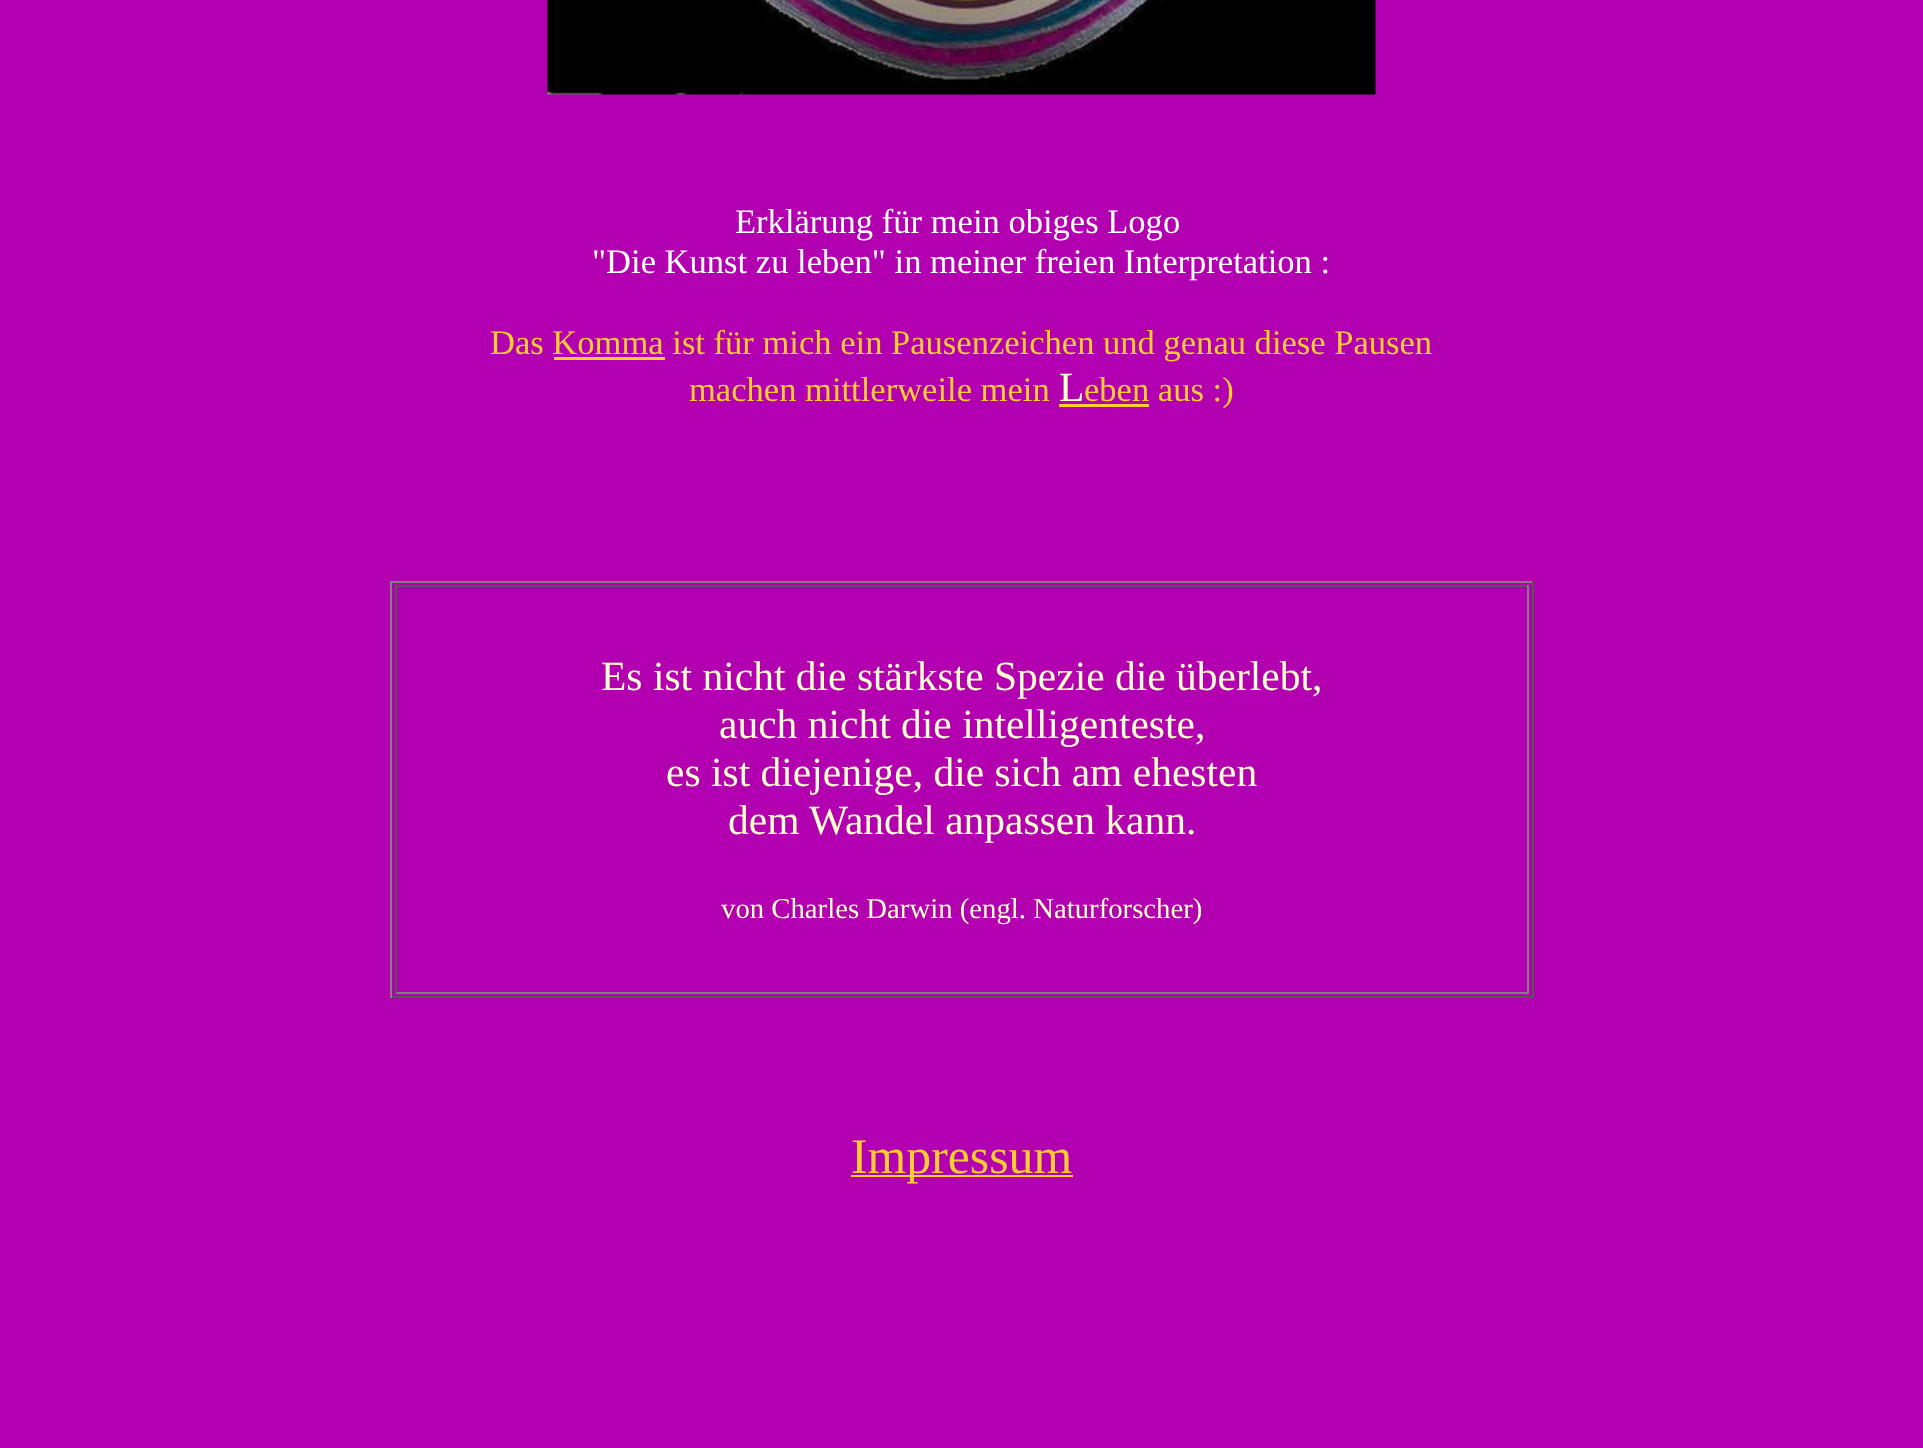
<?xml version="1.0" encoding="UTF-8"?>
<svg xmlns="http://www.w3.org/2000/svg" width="1923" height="1448">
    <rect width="100%" height="100%" fill="#B200B0"/>
    <image x="547" y="0" width="829" height="95" href="img_01.png"/>
    <text x="735" y="233" font-family="Liberation Serif" font-size="34.55" fill="#FFFFFF">Erklärung für mein obiges Logo</text>
    <text x="592" y="273" font-family="Liberation Serif" font-size="34.55" fill="#FFFFFF">"Die Kunst zu leben" in meiner freien Interpretation :</text>
    <text x="490" y="354" font-family="Liberation Serif" font-size="34.55" fill="#FFCC33">Das Komma ist für mich ein Pausenzeichen und genau diese Pausen</text>
    <rect x="554" y="357" width="111" height="3" fill="#FFCC33"/>
    <text x="689" y="401" font-family="Liberation Serif" font-size="34.55" fill="#FFCC33">machen mittlerweile mein</text>
    <text x="1059" y="401" font-family="Liberation Serif" font-size="41.5" fill="#FFFFCC">L</text>
    <rect x="1059" y="404" width="90" height="3" fill="#FFCC33"/>
    <text x="1084" y="401" font-family="Liberation Serif" font-size="34.55" fill="#FFCC33">eben aus :)</text>
    <rect x="390" y="581" width="1143" height="2" fill="#808080"/>
    <rect x="1532" y="581" width="2" height="417" fill="#555555"/>
    <rect x="390" y="996" width="1143" height="2" fill="#555555"/>
    <rect x="390" y="581" width="2" height="417" fill="#808080"/>
    <rect x="395" y="585" width="1134" height="2" fill="#555555"/>
    <rect x="1527" y="585" width="2" height="408" fill="#808080"/>
    <rect x="395" y="992" width="1134" height="2" fill="#808080"/>
    <rect x="395" y="585" width="2" height="408" fill="#555555"/>
    <text x="601" y="690" font-family="Liberation Serif" font-size="41.5" fill="#FFFFCC">Es ist nicht die stärkste Spezie die überlebt,</text>
    <text x="719" y="738" font-family="Liberation Serif" font-size="41.5" fill="#FFFFCC">auch nicht die intelligenteste,</text>
    <text x="666" y="786" font-family="Liberation Serif" font-size="41.5" fill="#FFFFCC">es ist diejenige, die sich am ehesten</text>
    <text x="728" y="834" font-family="Liberation Serif" font-size="41.5" fill="#FFFFCC">dem Wandel anpassen kann.</text>
    <text x="721" y="918" font-family="Liberation Serif" font-size="28.75" fill="#FFFFCC">von Charles Darwin (engl. Naturforscher)</text>
    <rect x="851" y="1175" width="222" height="2" fill="#FFCC33"/>
    <text x="851" y="1173" font-family="Liberation Serif" font-size="49.75" fill="#FFCC33">Impressum</text>
</svg>
